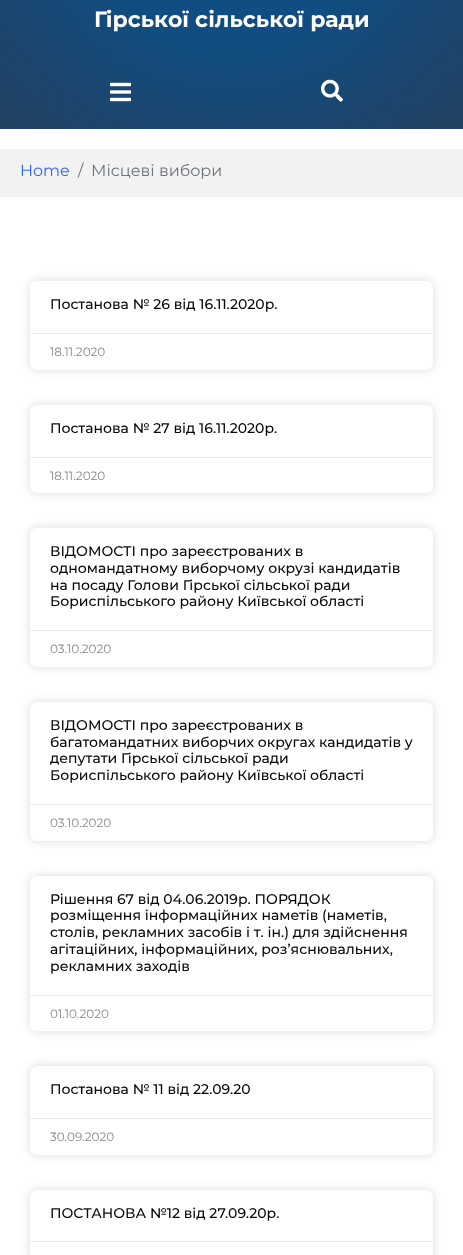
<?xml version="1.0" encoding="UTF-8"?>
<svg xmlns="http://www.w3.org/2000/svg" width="463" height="1255">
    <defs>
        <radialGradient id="g1" gradientUnits="userSpaceOnUse" cx="0" cy="0" r="1" gradientTransform="matrix(327 0 0 263 232 -57)"><stop offset="0.36" stop-color="#104D82"/><stop offset="1" stop-color="#234161"/></radialGradient>
        <filter id="blur1" x="-50%" y="-200%" width="200%" height="500%"><feGaussianBlur stdDeviation="5"/></filter>
    </defs>
    <rect width="100%" height="100%" fill="#FFFFFF"/>
    <rect x="0" y="0" width="463" height="129" fill="url(#g1)"/>
    <text x="94" y="27" font-family="Montserrat" font-size="22" font-weight="700" fill="#FFFFFF">Гірської сільської ради</text>
    <image x="110" y="82" width="21" height="20" href="img_01.png"/>
    <image x="321" y="79" width="22" height="23" href="img_02.png"/>
    <rect x="0" y="149" width="463" height="48" fill="#F2F2F2"/>
    <text x="20" y="176" font-family="Montserrat" font-size="16" fill="#3366FF">Home</text>
    <text x="78" y="176" font-family="Montserrat" font-size="16" fill="#6C757D">/</text>
    <text x="91" y="176" font-family="Montserrat" font-size="16" fill="#6C757D">Місцеві вибори</text>
    <rect x="30" y="281" width="403" height="89" rx="7" fill="#000000" fill-opacity="0.15" filter="url(#blur1)"/>
    <rect x="30" y="281" width="403" height="89" rx="7" fill="#FFFFFF"/>
    <text x="50" y="309" font-family="Montserrat" font-size="14" font-weight="500" fill="#070707">Постанова № 26 від 16.11.2020р.</text>
    <rect x="30" y="333" width="403" height="1" fill="#EAEAEA"/>
    <text x="50" y="356" font-family="Montserrat" font-size="12" fill="#888686">18.11.2020</text>
    <rect x="30" y="405" width="403" height="88" rx="7" fill="#000000" fill-opacity="0.15" filter="url(#blur1)"/>
    <rect x="30" y="405" width="403" height="88" rx="7" fill="#FFFFFF"/>
    <text x="50" y="433" font-family="Montserrat" font-size="14" font-weight="500" fill="#070707">Постанова № 27 від 16.11.2020р.</text>
    <rect x="30" y="457" width="403" height="1" fill="#EAEAEA"/>
    <text x="50" y="480" font-family="Montserrat" font-size="12" fill="#888686">18.11.2020</text>
    <rect x="30" y="528" width="403" height="139" rx="7" fill="#000000" fill-opacity="0.15" filter="url(#blur1)"/>
    <rect x="30" y="528" width="403" height="139" rx="7" fill="#FFFFFF"/>
    <text font-family="Montserrat" font-size="14" font-weight="500" fill="#070707">
        <tspan x="50" y="556">ВІДОМОСТІ про зареєстрованих в</tspan>
        <tspan x="50" y="573">одномандатному виборчому окрузі кандидатів</tspan>
        <tspan x="50" y="590">на посаду Голови Гірської сільської ради</tspan>
        <tspan x="50" y="606">Бориспільського району Київської області</tspan>
    </text>
    <rect x="30" y="630" width="403" height="1" fill="#EAEAEA"/>
    <text x="50" y="653" font-family="Montserrat" font-size="12" fill="#888686">03.10.2020</text>
    <rect x="30" y="702" width="403" height="139" rx="7" fill="#000000" fill-opacity="0.15" filter="url(#blur1)"/>
    <rect x="30" y="702" width="403" height="139" rx="7" fill="#FFFFFF"/>
    <text font-family="Montserrat" font-size="14" font-weight="500" fill="#070707">
        <tspan x="50" y="730">ВІДОМОСТІ про зареєстрованих в</tspan>
        <tspan x="50" y="747">багатомандатних виборчих округах кандидатів у</tspan>
        <tspan x="50" y="763">депутати Гірської сільської ради</tspan>
        <tspan x="50" y="780">Бориспільського району Київської області</tspan>
    </text>
    <rect x="30" y="804" width="403" height="1" fill="#EAEAEA"/>
    <text x="50" y="827" font-family="Montserrat" font-size="12" fill="#888686">03.10.2020</text>
    <rect x="30" y="876" width="403" height="155" rx="7" fill="#000000" fill-opacity="0.15" filter="url(#blur1)"/>
    <rect x="30" y="876" width="403" height="155" rx="7" fill="#FFFFFF"/>
    <text font-family="Montserrat" font-size="14" font-weight="500" fill="#070707">
        <tspan x="50" y="904">Рішення 67 від 04.06.2019р. ПОРЯДОК</tspan>
        <tspan x="50" y="920">розміщення інформаційних наметів (наметів,</tspan>
        <tspan x="50" y="937">столів, рекламних засобів і т. ін.) для здійснення</tspan>
        <tspan x="50" y="954">агітаційних, інформаційних, роз’яснювальних,</tspan>
        <tspan x="50" y="971">рекламних заходів</tspan>
    </text>
    <rect x="30" y="995" width="403" height="1" fill="#EAEAEA"/>
    <text x="50" y="1018" font-family="Montserrat" font-size="12" fill="#888686">01.10.2020</text>
    <rect x="30" y="1066" width="403" height="89" rx="7" fill="#000000" fill-opacity="0.15" filter="url(#blur1)"/>
    <rect x="30" y="1066" width="403" height="89" rx="7" fill="#FFFFFF"/>
    <text x="50" y="1094" font-family="Montserrat" font-size="14" font-weight="500" fill="#070707">Постанова № 11 від 22.09.20</text>
    <rect x="30" y="1118" width="403" height="1" fill="#EAEAEA"/>
    <text x="50" y="1141" font-family="Montserrat" font-size="12" fill="#888686">30.09.2020</text>
    <rect x="30" y="1190" width="403" height="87" rx="7" fill="#000000" fill-opacity="0.15" filter="url(#blur1)"/>
    <rect x="30" y="1190" width="403" height="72" rx="7" fill="#FFFFFF"/>
    <text x="50" y="1218" font-family="Montserrat" font-size="14" font-weight="500" fill="#070707">ПОСТАНОВА №12 від 27.09.20р.</text>
    <rect x="30" y="1241" width="403" height="1" fill="#EAEAEA"/>
</svg>
